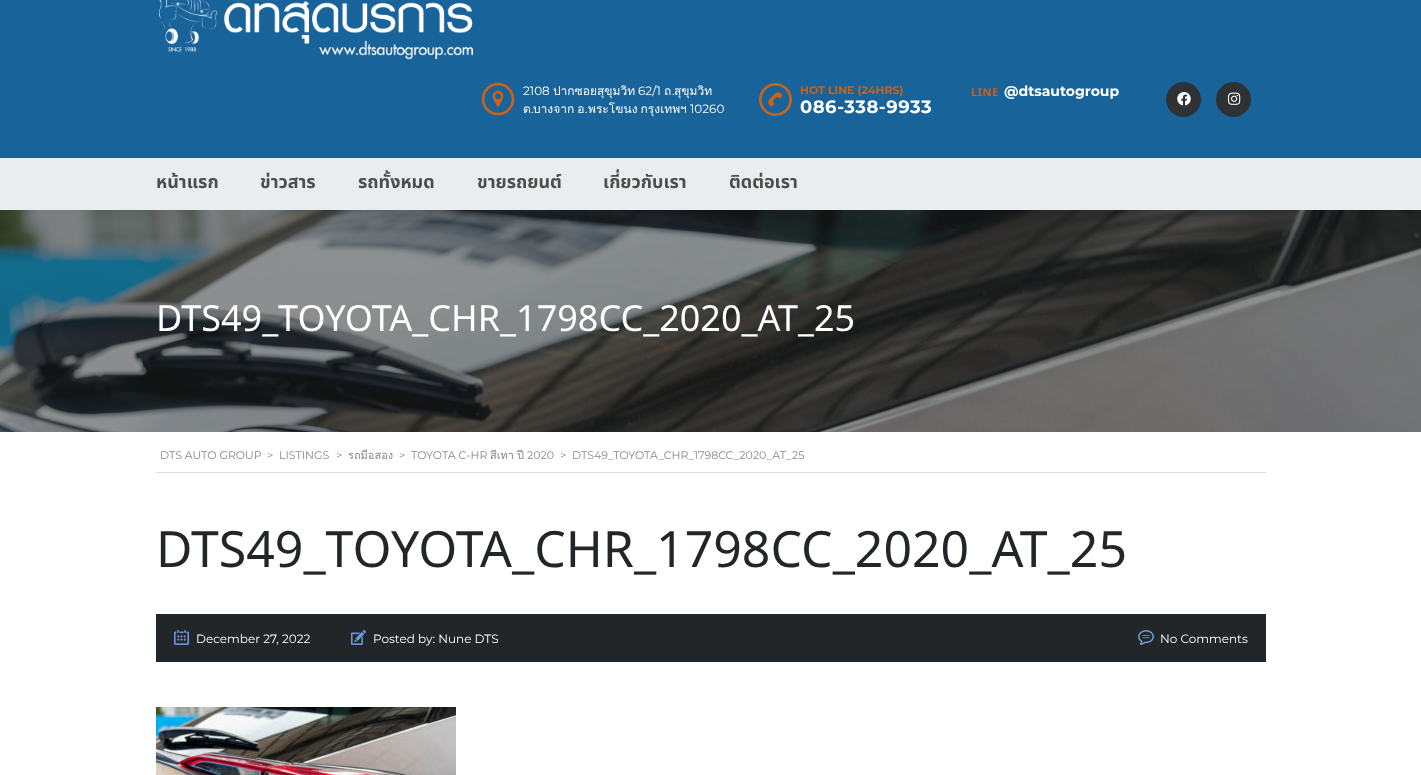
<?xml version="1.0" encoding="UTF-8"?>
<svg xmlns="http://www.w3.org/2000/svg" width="1421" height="775">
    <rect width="100%" height="100%" fill="#FFFFFF"/>
    <rect x="0" y="0" width="1421" height="158" fill="#18639A"/>
    <image x="159" y="0" width="314" height="60" href="img_01.png"/>
    <image x="481" y="82" width="34" height="34" href="img_02.png"/>
    <text x="523" y="95" font-family="Montserrat" font-size="12" fill="#FFFFFF">2108</text>
    <text x="553" y="95" font-family="Loma" font-size="12" fill="#FFFFFF">ปากซอยสุขุมวิท</text>
    <text x="638" y="95" font-family="Montserrat" font-size="12" fill="#FFFFFF">62/1</text>
    <text x="664" y="95" font-family="Loma" font-size="12" fill="#FFFFFF">ถ</text>
    <text x="672" y="95" font-family="Montserrat" font-size="12" fill="#FFFFFF">.</text>
    <text x="674" y="95" font-family="Loma" font-size="12" fill="#FFFFFF">สุขุมวิท</text>
    <text x="523" y="113" font-family="Loma" font-size="12" fill="#FFFFFF">ต</text>
    <text x="531" y="113" font-family="Montserrat" font-size="12" fill="#FFFFFF">.</text>
    <text x="533" y="113" word-spacing="-1" font-family="Loma" font-size="12" fill="#FFFFFF">บางจาก อ</text>
    <text x="585" y="113" font-family="Montserrat" font-size="12" fill="#FFFFFF">.</text>
    <text x="588" y="113" word-spacing="-1" font-family="Loma" font-size="12" fill="#FFFFFF">พระโขนง กรุงเทพฯ</text>
    <text x="690" y="113" font-family="Montserrat" font-size="12" fill="#FFFFFF">10260</text>
    <image x="759" y="83" width="33" height="34" href="img_03.png"/>
    <text x="800" y="94" font-family="Montserrat" font-size="11" font-weight="700" fill="#CC6119">HOT LINE (24HRS)</text>
    <text x="800" y="113" font-family="Montserrat" font-size="18" font-weight="700" letter-spacing="0.5" fill="#FFFFFF">086-338-9933</text>
    <text x="971" y="96" font-family="Noto Sans" font-size="11" font-weight="700" letter-spacing="0.5" fill="#CC6119">LINE</text>
    <text x="1004" y="96" font-family="Montserrat" font-size="14" font-weight="700" fill="#FFFFFF">@dtsautogroup</text>
    <circle cx="1183.5" cy="99.5" r="17.5" fill="#2F3234"/>
    <image x="1177" y="92" width="14" height="14" href="img_04.png"/>
    <circle cx="1233.5" cy="99.5" r="17.5" fill="#2F3234"/>
    <image x="1228" y="92" width="13" height="13" href="img_05.png"/>
    <rect x="0" y="158" width="1421" height="52" fill="#EAEDF0"/>
    <text x="156" y="188" font-family="Noto Sans Thai" font-size="18" font-weight="700" fill="#4D4D4D">หน้าแรก</text>
    <text x="260" y="188" font-family="Noto Sans Thai" font-size="18" font-weight="700" fill="#4D4D4D">ข่าวสาร</text>
    <text x="358" y="188" font-family="Noto Sans Thai" font-size="18" font-weight="700" fill="#4D4D4D">รถทั้งหมด</text>
    <text x="477" y="188" font-family="Noto Sans Thai" font-size="18" font-weight="700" fill="#4D4D4D">ขายรถยนต์</text>
    <text x="603" y="188" font-family="Noto Sans Thai" font-size="18" font-weight="700" fill="#4D4D4D">เกี่ยวกับเรา</text>
    <text x="729" y="188" font-family="Noto Sans Thai" font-size="18" font-weight="700" fill="#4D4D4D">ติดต่อเรา</text>
    <image x="0" y="210" width="1421" height="222" href="img_06.png"/>
    <text x="156" y="331" font-family="Noto Sans" font-size="36" fill="#FFFFFF">DTS49_TOYOTA_CHR_1798CC_2020_AT_25</text>
    <rect x="156" y="472" width="1110" height="1" fill="#DDDDDD"/>
    <text x="160" y="459" font-family="Montserrat" font-size="11" fill="#888888">DTS AUTO GROUP</text>
    <text x="267" y="459" font-family="Montserrat" font-size="11" fill="#888888">&gt;</text>
    <text x="279" y="459" font-family="Montserrat" font-size="11" fill="#888888">LISTINGS</text>
    <text x="336" y="459" font-family="Montserrat" font-size="11" fill="#888888">&gt;</text>
    <text x="348" y="459" font-family="Loma" font-size="11" fill="#888888">รถมือสอง</text>
    <text x="399" y="459" font-family="Montserrat" font-size="11" fill="#888888">&gt;</text>
    <text x="411" y="459" font-family="Montserrat" font-size="11" fill="#888888">TOYOTA C-HR</text>
    <text x="490" y="459" font-family="Loma" font-size="11" fill="#888888">สีเทา</text>
    <text x="517" y="459" font-family="Loma" font-size="11" fill="#888888">ปี</text>
    <text x="527" y="459" font-family="Montserrat" font-size="11" fill="#888888">2020</text>
    <text x="560" y="459" font-family="Montserrat" font-size="11" fill="#888888">&gt;</text>
    <text x="572" y="459" font-family="Montserrat" font-size="11" fill="#888888">DTS49_TOYOTA_CHR_1798CC_2020_AT_25</text>
    <text x="156" y="567" font-family="Noto Sans" font-size="50" fill="#232628">DTS49_TOYOTA_CHR_1798CC_2020_AT_25</text>
    <rect x="156" y="614" width="1110" height="48" fill="#232628"/>
    <image x="174" y="630" width="15" height="15" href="img_07.png"/>
    <text x="196" y="643" font-family="Montserrat" font-size="12" fill="#FFFFFF">December 27, 2022</text>
    <image x="351" y="630" width="15" height="15" href="img_08.png"/>
    <text x="373" y="643" font-family="Montserrat" font-size="12" fill="#FFFFFF">Posted by: Nune DTS</text>
    <image x="1138" y="630" width="16" height="15" href="img_09.png"/>
    <text x="1160" y="643" font-family="Montserrat" font-size="12" fill="#FFFFFF">No Comments</text>
    <image x="156" y="707" width="300" height="68" href="img_10.png"/>
</svg>
